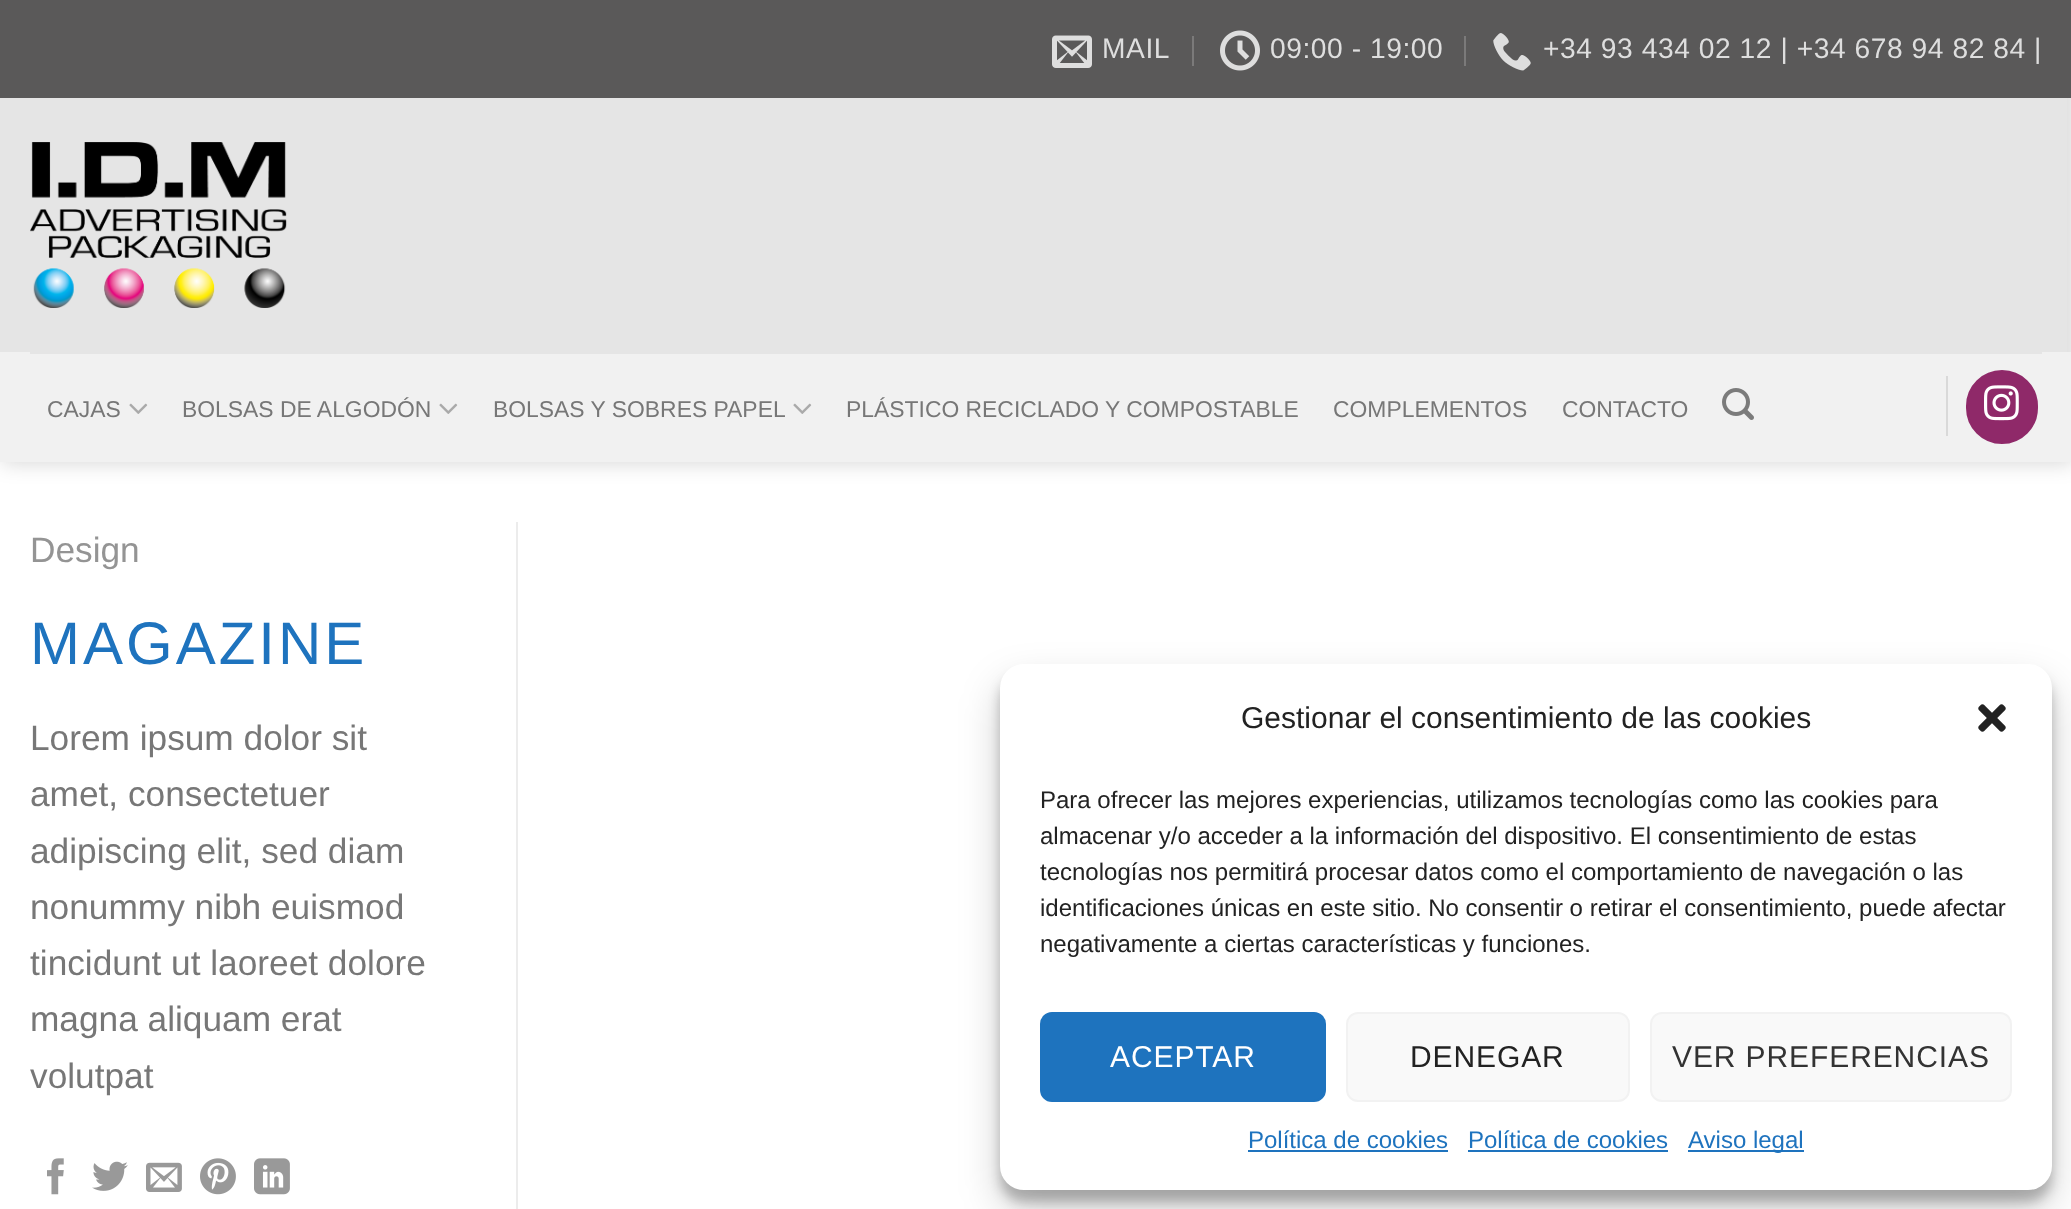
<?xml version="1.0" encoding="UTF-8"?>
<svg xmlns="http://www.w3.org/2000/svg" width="2071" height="1209">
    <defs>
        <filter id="blur1" x="-50%" y="-200%" width="200%" height="500%"><feGaussianBlur stdDeviation="10"/></filter>
        <filter id="blur2" x="-50%" y="-200%" width="200%" height="500%"><feGaussianBlur stdDeviation="6"/></filter>
        <filter id="blur3" x="-50%" y="-200%" width="200%" height="500%"><feGaussianBlur stdDeviation="20"/></filter>
    </defs>
    <rect width="100%" height="100%" fill="#FFFFFF"/>
    <rect x="2" y="2" width="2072" height="462" fill="#000000" fill-opacity="0.15" filter="url(#blur1)"/>
    <rect x="0" y="0" width="2071" height="98" fill="#5A5959"/>
    <image x="1052" y="35" width="40" height="33" href="img_01.png"/>
    <text x="1102" y="58" font-family="Liberation Sans" font-size="28.2" letter-spacing="0.55" fill="#DEDEDE">MAIL</text>
    <rect x="1192" y="36" width="2" height="30" fill="#7B7A7A"/>
    <image x="1220" y="30" width="40" height="41" href="img_02.png"/>
    <text x="1270" y="58" font-family="Liberation Sans" font-size="28.2" letter-spacing="0.55" fill="#DEDEDE">09:00 - 19:00</text>
    <rect x="1464" y="36" width="2" height="30" fill="#7B7A7A"/>
    <image x="1493" y="33" width="38" height="38" href="img_03.png"/>
    <text x="1543" y="58" font-family="Liberation Sans" font-size="28.2" letter-spacing="0.55" fill="#DEDEDE">+34 93 434 02 12 | +34 678 94 82 84 |</text>
    <rect x="0" y="98" width="2067" height="254" fill="#E5E5E5"/>
    <image x="30" y="142" width="257" height="166" href="img_04.png"/>
    <rect x="0" y="352" width="2071" height="110" fill="#F1F1F1"/>
    <rect x="30" y="352" width="2012" height="2" fill="#E5E5E5"/>
    <text x="47" y="417" font-family="Liberation Sans" font-size="22.9" fill="#777777">CAJAS</text>
    <image x="129" y="403" width="19" height="11" href="img_05.png"/>
    <text x="182" y="417" font-family="Liberation Sans" font-size="22.9" fill="#777777">BOLSAS DE ALGODÓN</text>
    <image x="439" y="403" width="19" height="11" href="img_05.png"/>
    <text x="493" y="417" font-family="Liberation Sans" font-size="22.9" fill="#777777">BOLSAS Y SOBRES PAPEL</text>
    <image x="793" y="403" width="19" height="11" href="img_05.png"/>
    <text x="846" y="417" font-family="Liberation Sans" font-size="22.9" fill="#777777">PLÁSTICO RECICLADO Y COMPOSTABLE</text>
    <text x="1333" y="417" font-family="Liberation Sans" font-size="22.9" fill="#777777">COMPLEMENTOS</text>
    <text x="1562" y="417" font-family="Liberation Sans" font-size="22.9" fill="#777777">CONTACTO</text>
    <image x="1722" y="388" width="32" height="32" href="img_06.png"/>
    <rect x="1946" y="376" width="2" height="60" fill="#D9D9D9"/>
    <rect x="1967" y="371" width="70" height="72" rx="35" fill="#8F2969" stroke="#8F2969" stroke-width="2"/>
    <image x="1984" y="385" width="35" height="36" href="img_07.png"/>
    <rect x="516" y="522" width="2" height="687" fill="#ECECEC"/>
    <text x="30" y="562" font-family="Liberation Sans" font-size="35.25" fill="#949494">Design</text>
    <text x="30" y="664" font-family="Liberation Sans" font-size="60" letter-spacing="3" fill="#1E73BE">MAGAZINE</text>
    <text font-family="Liberation Sans" font-size="35.25" fill="#777777">
        <tspan x="30" y="750">Lorem ipsum dolor sit</tspan>
        <tspan x="30" y="806">amet, consectetuer</tspan>
        <tspan x="30" y="863">adipiscing elit, sed diam</tspan>
        <tspan x="30" y="919">nonummy nibh euismod</tspan>
        <tspan x="30" y="975">tincidunt ut laoreet dolore</tspan>
        <tspan x="30" y="1031">magna aliquam erat</tspan>
        <tspan x="30" y="1088">volutpat</tspan>
    </text>
    <image x="47" y="1158" width="17" height="37" href="img_08.png"/>
    <image x="92" y="1161" width="36" height="30" href="img_09.png"/>
    <image x="146" y="1162" width="36" height="30" href="img_10.png"/>
    <image x="200" y="1158" width="36" height="37" href="img_11.png"/>
    <image x="254" y="1158" width="36" height="37" href="img_12.png"/>
    <rect x="1000" y="676" width="1052" height="526" rx="24" fill="#000000" fill-opacity="0.23" filter="url(#blur2)"/>
    <rect x="1000" y="684" width="1052" height="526" rx="24" fill="#000000" fill-opacity="0.19" filter="url(#blur3)"/>
    <rect x="1000" y="664" width="1052" height="526" rx="24" fill="#FFFFFF"/>
    <text x="1241" y="728" font-family="Liberation Sans" font-size="30" fill="#222222">Gestionar el consentimiento de las cookies</text>
    <image x="1978" y="704" width="28" height="28" href="img_13.png"/>
    <text font-family="Liberation Sans" font-size="24" fill="#222222">
        <tspan x="1040" y="808">Para ofrecer las mejores experiencias, utilizamos tecnologías como las cookies para</tspan>
        <tspan x="1040" y="844">almacenar y/o acceder a la información del dispositivo. El consentimiento de estas</tspan>
        <tspan x="1040" y="880">tecnologías nos permitirá procesar datos como el comportamiento de navegación o las</tspan>
        <tspan x="1040" y="916">identificaciones únicas en este sitio. No consentir o retirar el consentimiento, puede afectar</tspan>
        <tspan x="1040" y="952">negativamente a ciertas características y funciones.</tspan>
    </text>
    <rect x="1041" y="1013" width="284" height="88" rx="11" fill="#1E73BE" stroke="#1E73BE" stroke-width="2"/>
    <text x="1110" y="1067" font-family="Liberation Sans" font-size="30" letter-spacing="0.9" fill="#FFFFFF">ACEPTAR</text>
    <rect x="1347" y="1013" width="282" height="88" rx="11" fill="#F9F9F9" stroke="#F2F2F2" stroke-width="2"/>
    <text x="1410" y="1067" font-family="Liberation Sans" font-size="30" letter-spacing="0.9" fill="#222222">DENEGAR</text>
    <rect x="1651" y="1013" width="360" height="88" rx="11" fill="#F9F9F9" stroke="#F2F2F2" stroke-width="2"/>
    <text x="1672" y="1067" font-family="Liberation Sans" font-size="30" letter-spacing="0.9" fill="#333333">VER PREFERENCIAS</text>
    <text x="1248" y="1148" font-family="Liberation Sans" font-size="24" fill="#1E73BE">Política de cookies</text>
    <rect x="1248" y="1150" width="200" height="2" fill="#1E73BE"/>
    <text x="1468" y="1148" font-family="Liberation Sans" font-size="24" fill="#1E73BE">Política de cookies</text>
    <rect x="1468" y="1150" width="200" height="2" fill="#1E73BE"/>
    <rect x="1688" y="1150" width="116" height="2" fill="#1E73BE"/>
    <text x="1688" y="1148" font-family="Liberation Sans" font-size="24" fill="#1E73BE">Aviso legal</text>
</svg>
